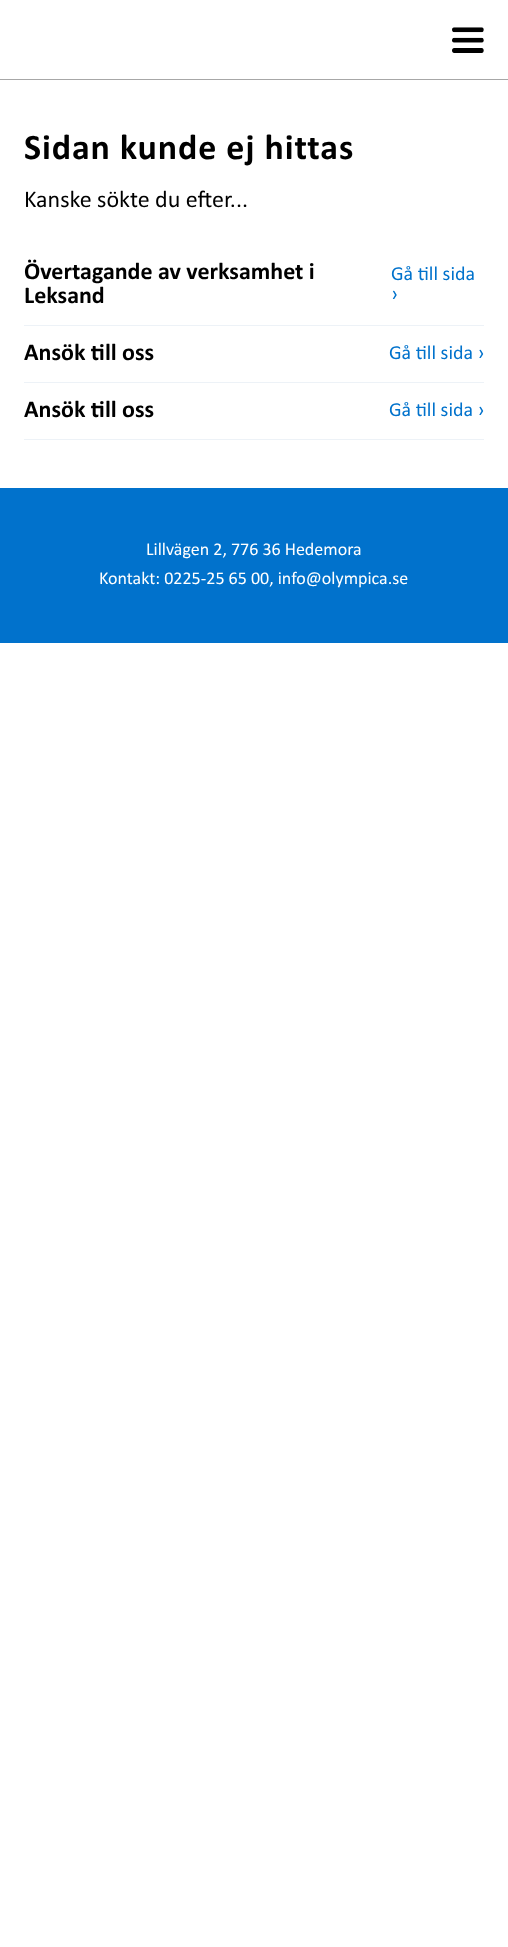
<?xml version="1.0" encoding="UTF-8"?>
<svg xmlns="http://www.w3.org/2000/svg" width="508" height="1947">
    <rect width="100%" height="100%" fill="#FFFFFF"/>
    <rect x="0" y="79" width="508" height="1" fill="#A7A7A7"/>
    <image x="452" y="27" width="32" height="26" href="img_01.png"/>
    <text x="24" y="159" font-family="Calibri" font-size="36" font-weight="700" letter-spacing="0.9" fill="#000000">Sidan kunde ej hittas</text>
    <text x="24" y="207" font-family="Calibri" font-size="24" fill="#000000">Kanske sökte du efter...</text>
    <rect x="24" y="325" width="460" height="1" fill="#EDF2F7"/>
    <text font-family="Calibri" font-size="24" font-weight="700" fill="#000000">
        <tspan x="24" y="279">Övertagande av verksamhet i</tspan>
        <tspan x="24" y="303">Leksand</tspan>
    </text>
    <text font-family="Calibri" font-size="20" fill="#0172CC">
        <tspan x="391" y="280">Gå till sida</tspan>
        <tspan x="391" y="300">›</tspan>
    </text>
    <rect x="24" y="382" width="460" height="1" fill="#EDF2F7"/>
    <text x="24" y="360" font-family="Calibri" font-size="24" font-weight="700" fill="#000000">Ansök till oss</text>
    <text x="389" y="359" font-family="Calibri" font-size="20" fill="#0172CC">Gå till sida ›</text>
    <rect x="24" y="439" width="460" height="1" fill="#EDF2F7"/>
    <text x="24" y="417" font-family="Calibri" font-size="24" font-weight="700" fill="#000000">Ansök till oss</text>
    <text x="389" y="416" font-family="Calibri" font-size="20" fill="#0172CC">Gå till sida ›</text>
    <rect x="0" y="488" width="508" height="155" fill="#0172CC"/>
    <text x="146" y="555" font-family="Calibri" font-size="18" fill="#FFFFFF">Lillvägen 2, 776 36 Hedemora</text>
    <text x="99" y="584" font-family="Calibri" font-size="18" fill="#FFFFFF">Kontakt: 0225-25 65 00, info@olympica.se</text>
</svg>
